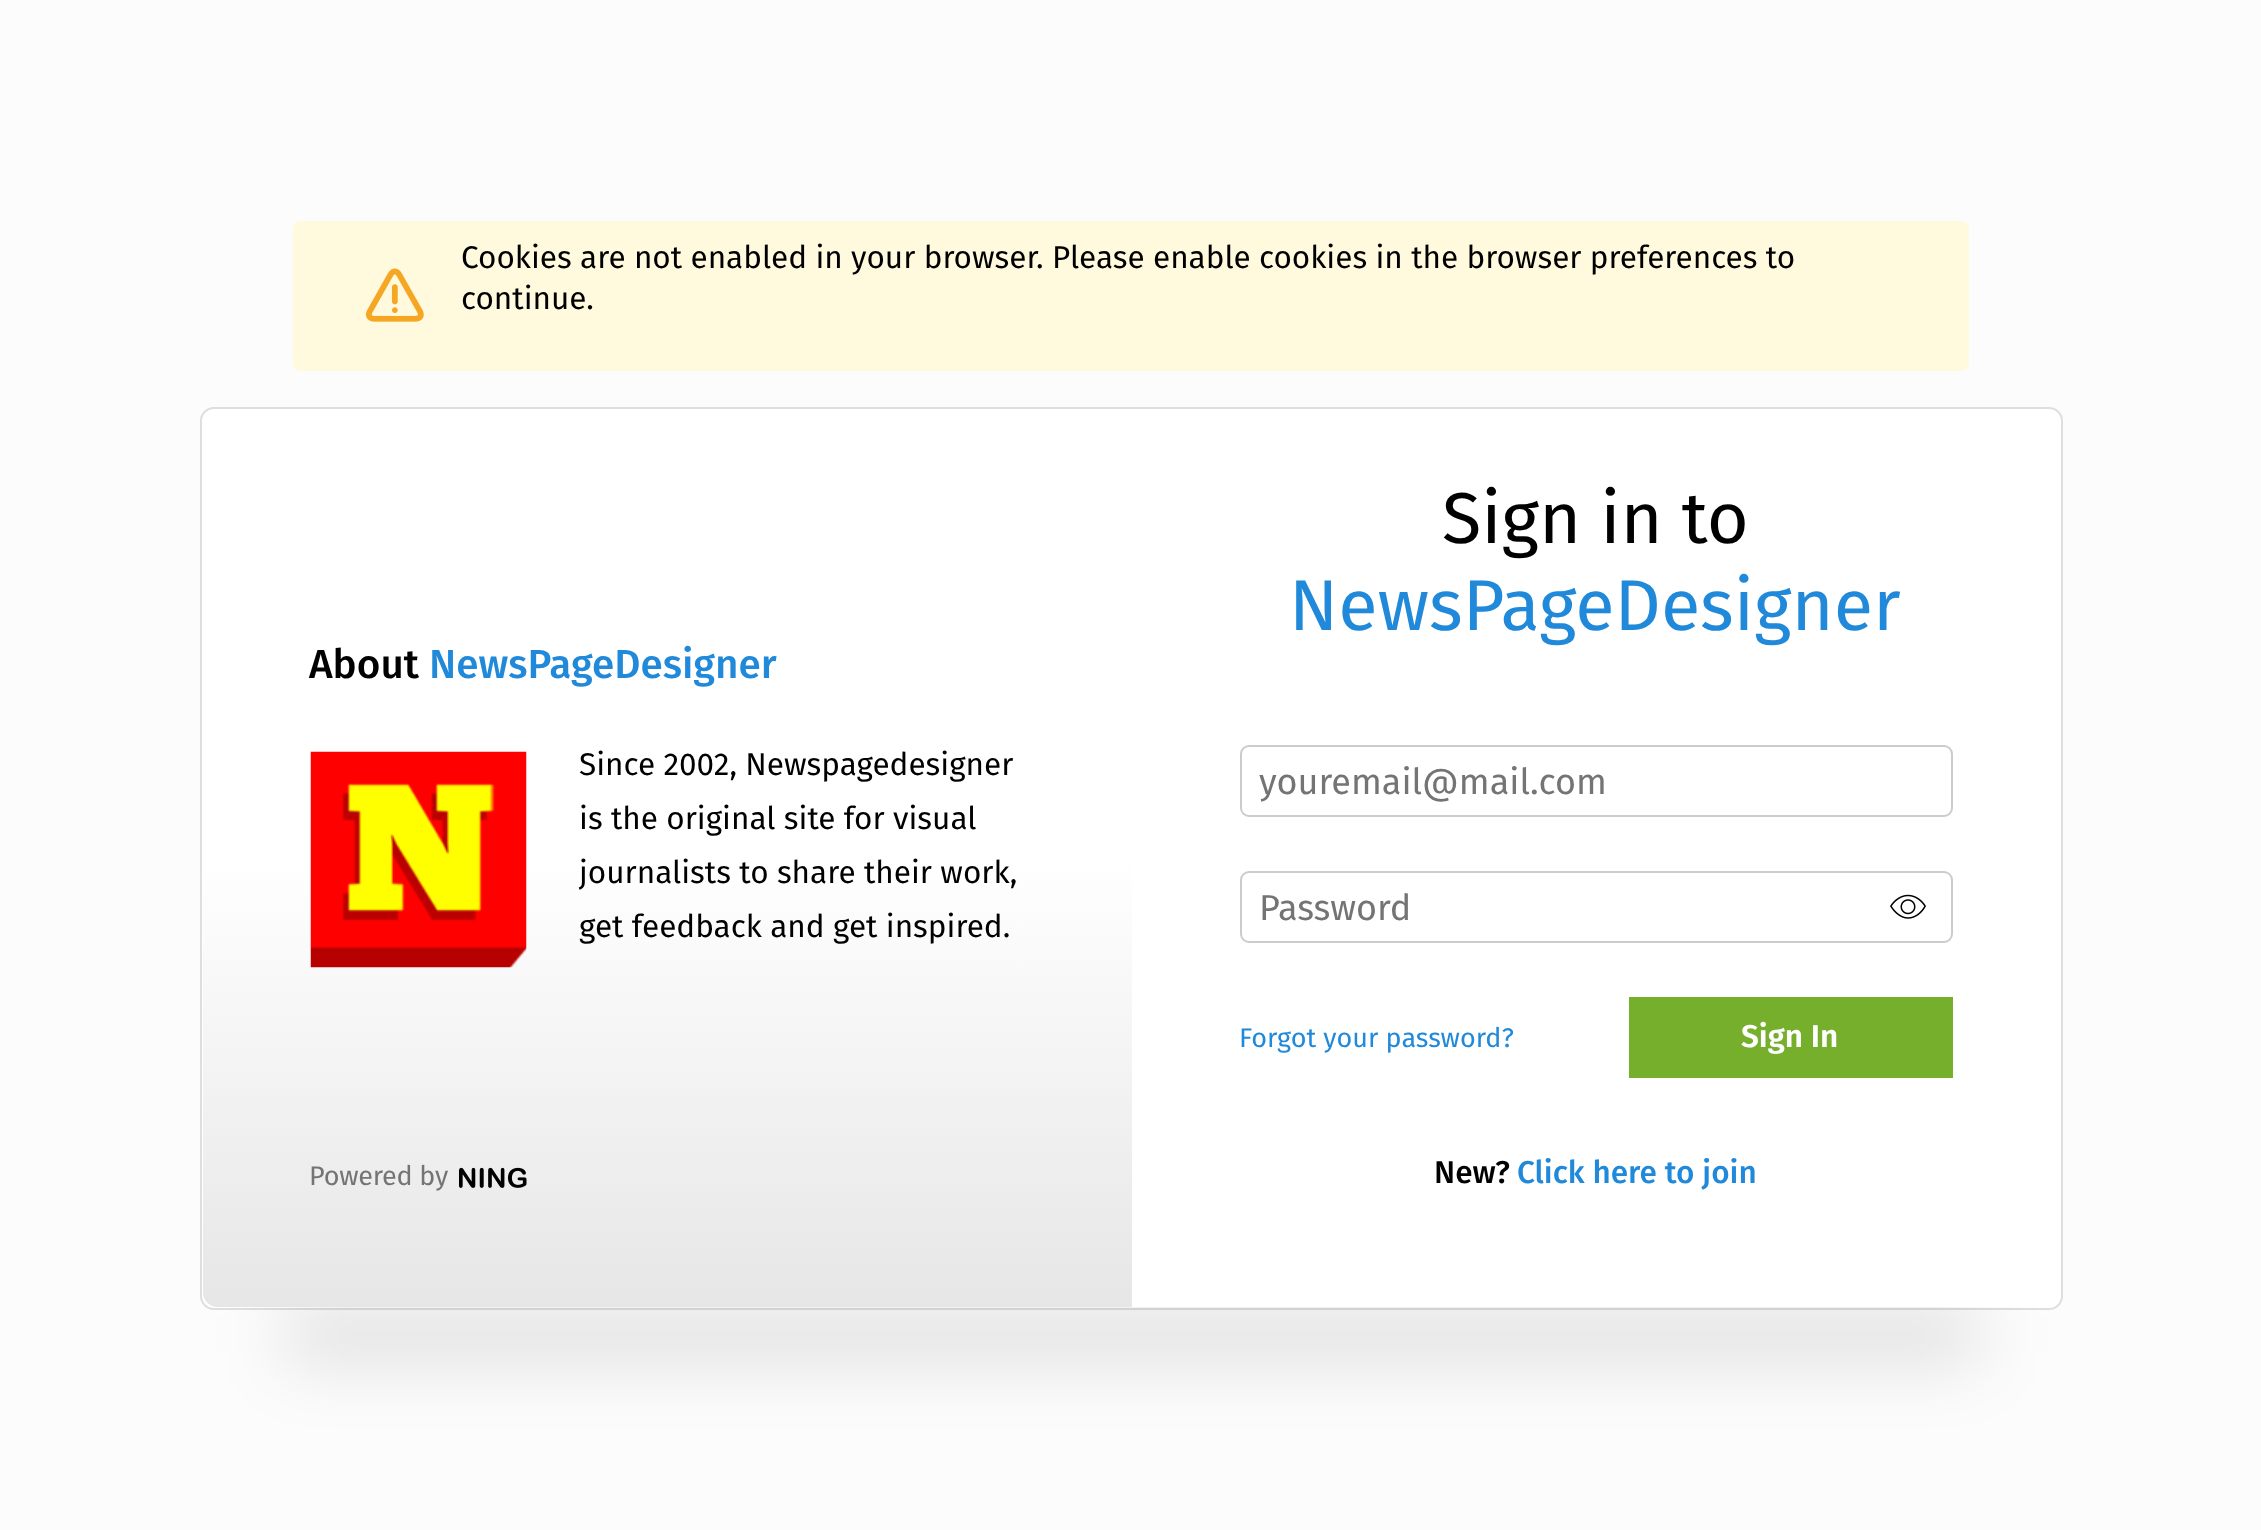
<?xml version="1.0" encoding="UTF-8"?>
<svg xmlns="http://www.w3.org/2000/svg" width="2261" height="1530">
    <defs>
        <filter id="blur1" x="-50%" y="-200%" width="200%" height="500%"><feGaussianBlur stdDeviation="35"/></filter>
        <linearGradient id="g1" gradientUnits="userSpaceOnUse" x1="667" y1="858" x2="667" y2="1307"><stop offset="0" stop-color="#FFFFFF"/><stop offset="1" stop-color="#E6E6E6"/></linearGradient>
    </defs>
    <rect width="100%" height="100%" fill="#FCFCFC"/>
    <rect x="293" y="221" width="1676" height="150" rx="7" fill="#FFF9DD"/>
    <image x="365" y="268" width="59" height="54" href="img_01.png"/>
    <text font-family="Fira Sans" font-size="31.5" fill="#000000">
        <tspan x="461" y="268">Cookies are not enabled in your browser. Please enable cookies in the browser preferences to</tspan>
        <tspan x="461" y="309">continue.</tspan>
    </text>
    <rect x="201" y="408" width="1861" height="901" rx="13" fill="#FFFFFF" stroke="#DEDEDE" stroke-width="2"/>
    <rect x="284" y="1307" width="1696" height="54" fill="#000000" fill-opacity="0.12" filter="url(#blur1)"/>
    <path d="M 217 410 H 1132 V 1307 H 217 C 209.5 1307 203 1300.5 203 1293 V 424 C 203 416.5 209.5 410 217 410 Z" fill="#FFFFFF"/>
    <path d="M 203 860 H 1132 V 1307 H 217 C 209.5 1307 203 1300.5 203 1293 Z" fill="url(#g1)"/>
    <path d="M 1132 410 H 2047 C 2054.5 410 2061 416.5 2061 424 V 1293 C 2061 1300.5 2054.5 1307 2047 1307 H 1132 Z" fill="#FFFFFF"/>
    <text x="309" y="678" font-family="Fira Sans" font-size="40.5" font-weight="500" fill="#000000">About</text>
    <text x="429" y="678" font-family="Fira Sans" font-size="40.5" font-weight="500" fill="#2189DA">NewsPageDesigner</text>
    <image x="310" y="751" width="217" height="217" href="img_02.png"/>
    <text font-family="Fira Sans" font-size="31.5" fill="#000000">
        <tspan x="579" y="775">Since 2002, Newspagedesigner</tspan>
        <tspan x="579" y="829">is the original site for visual</tspan>
        <tspan x="579" y="883">journalists to share their work,</tspan>
        <tspan x="579" y="937">get feedback and get inspired.</tspan>
    </text>
    <text x="309" y="1185" font-family="Fira Sans" font-size="27" letter-spacing="-0.25" fill="#747474">Powered by</text>
    <image x="459" y="1167" width="68" height="21" href="img_03.png"/>
    <text x="1442" y="543" font-family="Fira Sans" font-size="72" fill="#000000">Sign in to</text>
    <text x="1289" y="630" font-family="Fira Sans" font-size="72" fill="#2189DA">NewsPageDesigner</text>
    <rect x="1241" y="746" width="711" height="70" rx="8" fill="none" stroke="#CCCCCC" stroke-width="2"/>
    <text x="1259" y="794" font-family="Fira Sans" font-size="36" fill="#747474">youremail@mail.com</text>
    <rect x="1241" y="872" width="711" height="70" rx="8" fill="none" stroke="#CCCCCC" stroke-width="2"/>
    <text x="1259" y="920" font-family="Fira Sans" font-size="36" fill="#747474">Password</text>
    <image x="1890" y="894" width="36" height="25" href="img_04.png"/>
    <text x="1239" y="1047" font-family="Fira Sans" font-size="27" fill="#2189DA">Forgot your password?</text>
    <rect x="1629" y="997" width="324" height="81" fill="#75AF2C"/>
    <text x="1741" y="1047" font-family="Fira Sans" font-size="31.5" font-weight="600" fill="#FFFFFF">Sign In</text>
    <text x="1434" y="1183" font-family="Fira Sans" font-size="31.5" font-weight="500" fill="#000000">New?</text>
    <text x="1517" y="1183" font-family="Fira Sans" font-size="31.5" font-weight="500" fill="#2189DA">Click here to join</text>
</svg>
